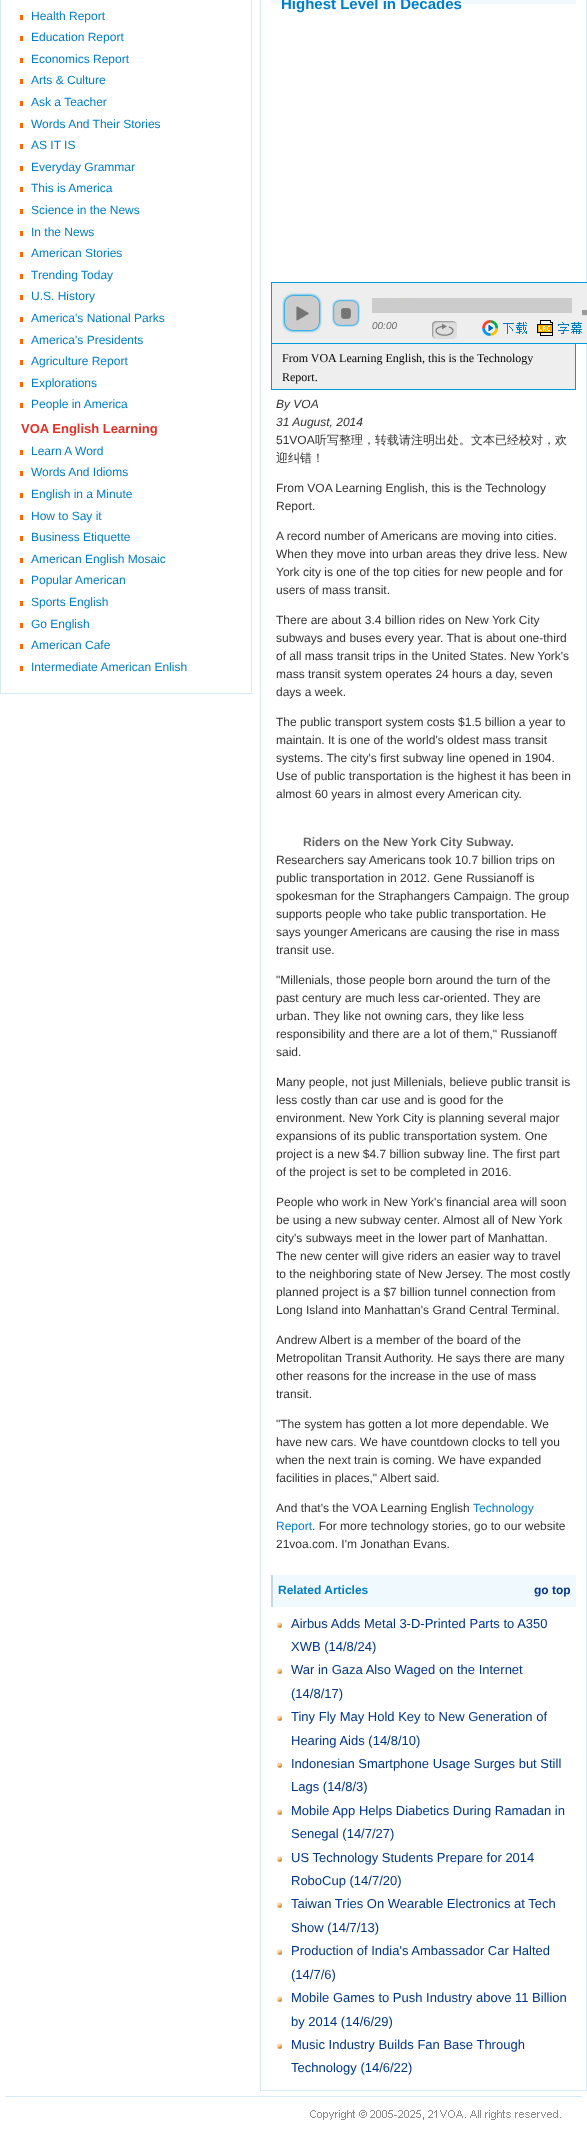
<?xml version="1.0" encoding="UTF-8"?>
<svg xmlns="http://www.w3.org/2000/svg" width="587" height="2129">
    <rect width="100%" height="100%" fill="#FFFFFF"/>
    <rect x="0.5" y="-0.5" width="251" height="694" fill="none" stroke="#DAE9F6"/>
    <rect x="20" y="15" width="3" height="5" fill="#FF6600"/>
    <text x="31" y="20" font-family="Liberation Sans" font-size="12" fill="#007DC6">Health Report</text>
    <rect x="20" y="36" width="3" height="5" fill="#FF6600"/>
    <text x="31" y="41" font-family="Liberation Sans" font-size="12" fill="#007DC6">Education Report</text>
    <rect x="20" y="58" width="3" height="5" fill="#FF6600"/>
    <text x="31" y="63" font-family="Liberation Sans" font-size="12" fill="#007DC6">Economics Report</text>
    <rect x="20" y="79" width="3" height="5" fill="#FF6600"/>
    <text x="31" y="84" font-family="Liberation Sans" font-size="12" fill="#007DC6">Arts &amp; Culture</text>
    <rect x="20" y="101" width="3" height="5" fill="#FF6600"/>
    <text x="31" y="106" font-family="Liberation Sans" font-size="12" fill="#007DC6">Ask a Teacher</text>
    <rect x="20" y="123" width="3" height="5" fill="#FF6600"/>
    <text x="31" y="128" font-family="Liberation Sans" font-size="12" fill="#007DC6">Words And Their Stories</text>
    <rect x="20" y="144" width="3" height="5" fill="#FF6600"/>
    <text x="31" y="149" font-family="Liberation Sans" font-size="12" fill="#007DC6">AS IT IS</text>
    <rect x="20" y="166" width="3" height="5" fill="#FF6600"/>
    <text x="31" y="171" font-family="Liberation Sans" font-size="12" fill="#007DC6">Everyday Grammar</text>
    <rect x="20" y="187" width="3" height="5" fill="#FF6600"/>
    <text x="31" y="192" font-family="Liberation Sans" font-size="12" fill="#007DC6">This is America</text>
    <rect x="20" y="209" width="3" height="5" fill="#FF6600"/>
    <text x="31" y="214" font-family="Liberation Sans" font-size="12" fill="#007DC6">Science in the News</text>
    <rect x="20" y="231" width="3" height="5" fill="#FF6600"/>
    <text x="31" y="236" font-family="Liberation Sans" font-size="12" fill="#007DC6">In the News</text>
    <rect x="20" y="252" width="3" height="5" fill="#FF6600"/>
    <text x="31" y="257" font-family="Liberation Sans" font-size="12" fill="#007DC6">American Stories</text>
    <rect x="20" y="274" width="3" height="5" fill="#FF6600"/>
    <text x="31" y="279" font-family="Liberation Sans" font-size="12" fill="#007DC6">Trending Today</text>
    <rect x="20" y="295" width="3" height="5" fill="#FF6600"/>
    <text x="31" y="300" font-family="Liberation Sans" font-size="12" fill="#007DC6">U.S. History</text>
    <rect x="20" y="317" width="3" height="5" fill="#FF6600"/>
    <text x="31" y="322" font-family="Liberation Sans" font-size="12" fill="#007DC6">America's National Parks</text>
    <rect x="20" y="339" width="3" height="5" fill="#FF6600"/>
    <text x="31" y="344" font-family="Liberation Sans" font-size="12" fill="#007DC6">America's Presidents</text>
    <rect x="20" y="360" width="3" height="5" fill="#FF6600"/>
    <text x="31" y="365" font-family="Liberation Sans" font-size="12" fill="#007DC6">Agriculture Report</text>
    <rect x="20" y="382" width="3" height="5" fill="#FF6600"/>
    <text x="31" y="387" font-family="Liberation Sans" font-size="12" fill="#007DC6">Explorations</text>
    <rect x="20" y="403" width="3" height="5" fill="#FF6600"/>
    <text x="31" y="408" font-family="Liberation Sans" font-size="12" fill="#007DC6">People in America</text>
    <text x="21" y="433" font-family="Liberation Sans" font-size="13" font-weight="700" fill="#E43026">VOA English Learning</text>
    <rect x="20" y="450" width="3" height="5" fill="#FF6600"/>
    <text x="31" y="455" font-family="Liberation Sans" font-size="12" fill="#007DC6">Learn A Word</text>
    <rect x="20" y="471" width="3" height="5" fill="#FF6600"/>
    <text x="31" y="476" font-family="Liberation Sans" font-size="12" fill="#007DC6">Words And Idioms</text>
    <rect x="20" y="493" width="3" height="5" fill="#FF6600"/>
    <text x="31" y="498" font-family="Liberation Sans" font-size="12" fill="#007DC6">English in a Minute</text>
    <rect x="20" y="515" width="3" height="5" fill="#FF6600"/>
    <text x="31" y="520" font-family="Liberation Sans" font-size="12" fill="#007DC6">How to Say it</text>
    <rect x="20" y="536" width="3" height="5" fill="#FF6600"/>
    <text x="31" y="541" font-family="Liberation Sans" font-size="12" fill="#007DC6">Business Etiquette</text>
    <rect x="20" y="558" width="3" height="5" fill="#FF6600"/>
    <text x="31" y="563" font-family="Liberation Sans" font-size="12" fill="#007DC6">American English Mosaic</text>
    <rect x="20" y="579" width="3" height="5" fill="#FF6600"/>
    <text x="31" y="584" font-family="Liberation Sans" font-size="12" fill="#007DC6">Popular American</text>
    <rect x="20" y="601" width="3" height="5" fill="#FF6600"/>
    <text x="31" y="606" font-family="Liberation Sans" font-size="12" fill="#007DC6">Sports English</text>
    <rect x="20" y="623" width="3" height="5" fill="#FF6600"/>
    <text x="31" y="628" font-family="Liberation Sans" font-size="12" fill="#007DC6">Go English</text>
    <rect x="20" y="644" width="3" height="5" fill="#FF6600"/>
    <text x="31" y="649" font-family="Liberation Sans" font-size="12" fill="#007DC6">American Cafe</text>
    <rect x="20" y="666" width="3" height="5" fill="#FF6600"/>
    <text x="31" y="671" font-family="Liberation Sans" font-size="12" fill="#007DC6">Intermediate American Enlish</text>
    <rect x="260.5" y="-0.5" width="326" height="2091" fill="none" stroke="#DAE9F6"/>
    <rect x="271" y="0" width="305" height="4" fill="#F0F9FE"/>
    <text x="281" y="9" font-family="Liberation Sans" font-size="15" font-weight="700" fill="#007DC6">Highest Level in Decades</text>
    <rect x="271.5" y="282.5" width="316" height="61" fill="#EEEEEE" stroke="#009BE3"/>
    <image x="282" y="293" width="40" height="40" href="img_01.png"/>
    <image x="332" y="299" width="28" height="28" href="img_02.png"/>
    <image x="372" y="298" width="200" height="15" href="img_03.png"/>
    <image x="582" y="305" width="5" height="11" href="img_04.png"/>
    <text x="372" y="329" font-family="Liberation Sans" font-size="10" font-style="italic" fill="#666666">00:00</text>
    <image x="432" y="321" width="25" height="18" href="img_05.png"/>
    <image x="482" y="320" width="45" height="16" href="img_06.png"/>
    <image x="537" y="320" width="45" height="16" href="img_07.png"/>
    <rect x="272" y="344" width="303" height="45" fill="#EEEEEE"/>
    <rect x="575" y="344" width="1" height="46" fill="#009BE3"/>
    <rect x="271" y="389" width="305" height="1" fill="#009BE3"/>
    <rect x="271" y="344" width="1" height="46" fill="#009BE3"/>
    <text font-family="Liberation Serif" font-size="12" fill="#000000">
        <tspan x="282" y="362">From VOA Learning English, this is the Technology</tspan>
        <tspan x="282" y="381">Report.</tspan>
    </text>
    <text font-family="Liberation Sans" font-size="12" font-style="italic" fill="#333333">
        <tspan x="276" y="408">By VOA</tspan>
        <tspan x="276" y="426">31 August, 2014</tspan>
    </text>
    <text x="276" y="444" font-family="Liberation Sans" font-size="12" fill="#333333">51VOA</text>
    <text x="315" y="444" font-family="WenQuanYi Zen Hei" font-size="12" font-weight="500" fill="#333333">听写整理，转载请注明出处。文本已经校对，欢</text>
    <text x="276" y="462" font-family="WenQuanYi Zen Hei" font-size="12" font-weight="500" fill="#333333">迎纠错！</text>
    <text font-family="Liberation Sans" font-size="12" fill="#333333">
        <tspan x="276" y="492">From VOA Learning English, this is the Technology</tspan>
        <tspan x="276" y="510">Report.</tspan>
    </text>
    <text font-family="Liberation Sans" font-size="12" fill="#333333">
        <tspan x="276" y="540">A record number of Americans are moving into cities.</tspan>
        <tspan x="276" y="558">When they move into urban areas they drive less. New</tspan>
        <tspan x="276" y="576">York city is one of the top cities for new people and for</tspan>
        <tspan x="276" y="594">users of mass transit.</tspan>
    </text>
    <text font-family="Liberation Sans" font-size="12" fill="#333333">
        <tspan x="276" y="624">There are about 3.4 billion rides on New York City</tspan>
        <tspan x="276" y="642">subways and buses every year. That is about one-third</tspan>
        <tspan x="276" y="660">of all mass transit trips in the United States. New York's</tspan>
        <tspan x="276" y="678">mass transit system operates 24 hours a day, seven</tspan>
        <tspan x="276" y="696">days a week.</tspan>
    </text>
    <text font-family="Liberation Sans" font-size="12" fill="#333333">
        <tspan x="276" y="726">The public transport system costs $1.5 billion a year to</tspan>
        <tspan x="276" y="744">maintain. It is one of the world's oldest mass transit</tspan>
        <tspan x="276" y="762">systems. The city's first subway line opened in 1904.</tspan>
        <tspan x="276" y="780">Use of public transportation is the highest it has been in</tspan>
        <tspan x="276" y="798">almost 60 years in almost every American city.</tspan>
    </text>
    <text x="303" y="846" font-family="Liberation Sans" font-size="12" font-weight="700" fill="#666666">Riders on the New York City Subway.</text>
    <text font-family="Liberation Sans" font-size="12" fill="#333333">
        <tspan x="276" y="864">Researchers say Americans took 10.7 billion trips on</tspan>
        <tspan x="276" y="882">public transportation in 2012. Gene Russianoff is</tspan>
        <tspan x="276" y="900">spokesman for the Straphangers Campaign. The group</tspan>
        <tspan x="276" y="918">supports people who take public transportation. He</tspan>
        <tspan x="276" y="936">says younger Americans are causing the rise in mass</tspan>
        <tspan x="276" y="954">transit use.</tspan>
    </text>
    <text font-family="Liberation Sans" font-size="12" fill="#333333">
        <tspan x="276" y="984">"Millenials, those people born around the turn of the</tspan>
        <tspan x="276" y="1002">past century are much less car-oriented. They are</tspan>
        <tspan x="276" y="1020">urban. They like not owning cars, they like less</tspan>
        <tspan x="276" y="1038">responsibility and there are a lot of them," Russianoff</tspan>
        <tspan x="276" y="1056">said.</tspan>
    </text>
    <text font-family="Liberation Sans" font-size="12" fill="#333333">
        <tspan x="276" y="1086">Many people, not just Millenials, believe public transit is</tspan>
        <tspan x="276" y="1104">less costly than car use and is good for the</tspan>
        <tspan x="276" y="1122">environment. New York City is planning several major</tspan>
        <tspan x="276" y="1140">expansions of its public transportation system. One</tspan>
        <tspan x="276" y="1158">project is a new $4.7 billion subway line. The first part</tspan>
        <tspan x="276" y="1176">of the project is set to be completed in 2016.</tspan>
    </text>
    <text font-family="Liberation Sans" font-size="12" fill="#333333">
        <tspan x="276" y="1206">People who work in New York's financial area will soon</tspan>
        <tspan x="276" y="1224">be using a new subway center. Almost all of New York</tspan>
        <tspan x="276" y="1242">city's subways meet in the lower part of Manhattan.</tspan>
        <tspan x="276" y="1260">The new center will give riders an easier way to travel</tspan>
        <tspan x="276" y="1278">to the neighboring state of New Jersey. The most costly</tspan>
        <tspan x="276" y="1296">planned project is a $7 billion tunnel connection from</tspan>
        <tspan x="276" y="1314">Long Island into Manhattan's Grand Central Terminal.</tspan>
    </text>
    <text font-family="Liberation Sans" font-size="12" fill="#333333">
        <tspan x="276" y="1344">Andrew Albert is a member of the board of the</tspan>
        <tspan x="276" y="1362">Metropolitan Transit Authority. He says there are many</tspan>
        <tspan x="276" y="1380">other reasons for the increase in the use of mass</tspan>
        <tspan x="276" y="1398">transit.</tspan>
    </text>
    <text font-family="Liberation Sans" font-size="12" fill="#333333">
        <tspan x="276" y="1428">"The system has gotten a lot more dependable. We</tspan>
        <tspan x="276" y="1446">have new cars. We have countdown clocks to tell you</tspan>
        <tspan x="276" y="1464">when the next train is coming. We have expanded</tspan>
        <tspan x="276" y="1482">facilities in places," Albert said.</tspan>
    </text>
    <text x="276" y="1512" font-family="Liberation Sans" font-size="12" fill="#333333">And that's the VOA Learning English</text>
    <text x="473" y="1512" font-family="Liberation Sans" font-size="12" fill="#007DC6">Technology</text>
    <text x="276" y="1530" font-family="Liberation Sans" font-size="12" fill="#007DC6">Report</text>
    <text x="312" y="1530" font-family="Liberation Sans" font-size="12" fill="#333333">. For more technology stories, go to our website</text>
    <text x="276" y="1548" font-family="Liberation Sans" font-size="12" fill="#333333">21voa.com. I'm Jonathan Evans.</text>
    <rect x="273" y="1575" width="303" height="32" fill="#F0F9FE"/>
    <rect x="271" y="1575" width="2" height="32" fill="#C7D5E4"/>
    <text x="278" y="1594" font-family="Liberation Sans" font-size="12" font-weight="700" fill="#007DC6">Related Articles</text>
    <text x="534" y="1594" font-family="Liberation Sans" font-size="12" font-weight="700" fill="#013687">go top</text>
    <image x="277" y="1622" width="5" height="6" href="img_08.png"/>
    <text font-family="Liberation Sans" font-size="13" fill="#013687">
        <tspan x="291" y="1628">Airbus Adds Metal 3-D-Printed Parts to A350</tspan>
        <tspan x="291" y="1651">XWB (14/8/24)</tspan>
    </text>
    <image x="277" y="1668" width="5" height="6" href="img_08.png"/>
    <text font-family="Liberation Sans" font-size="13" fill="#013687">
        <tspan x="291" y="1674">War in Gaza Also Waged on the Internet</tspan>
        <tspan x="291" y="1698">(14/8/17)</tspan>
    </text>
    <image x="277" y="1715" width="5" height="6" href="img_08.png"/>
    <text font-family="Liberation Sans" font-size="13" fill="#013687">
        <tspan x="291" y="1721">Tiny Fly May Hold Key to New Generation of</tspan>
        <tspan x="291" y="1745">Hearing Aids (14/8/10)</tspan>
    </text>
    <image x="277" y="1762" width="5" height="6" href="img_08.png"/>
    <text font-family="Liberation Sans" font-size="13" fill="#013687">
        <tspan x="291" y="1768">Indonesian Smartphone Usage Surges but Still</tspan>
        <tspan x="291" y="1791">Lags (14/8/3)</tspan>
    </text>
    <image x="277" y="1809" width="5" height="6" href="img_08.png"/>
    <text font-family="Liberation Sans" font-size="13" fill="#013687">
        <tspan x="291" y="1815">Mobile App Helps Diabetics During Ramadan in</tspan>
        <tspan x="291" y="1838">Senegal (14/7/27)</tspan>
    </text>
    <image x="277" y="1856" width="5" height="6" href="img_08.png"/>
    <text font-family="Liberation Sans" font-size="13" fill="#013687">
        <tspan x="291" y="1862">US Technology Students Prepare for 2014</tspan>
        <tspan x="291" y="1885">RoboCup (14/7/20)</tspan>
    </text>
    <image x="277" y="1902" width="5" height="6" href="img_08.png"/>
    <text font-family="Liberation Sans" font-size="13" fill="#013687">
        <tspan x="291" y="1908">Taiwan Tries On Wearable Electronics at Tech</tspan>
        <tspan x="291" y="1932">Show (14/7/13)</tspan>
    </text>
    <image x="277" y="1949" width="5" height="6" href="img_08.png"/>
    <text font-family="Liberation Sans" font-size="13" fill="#013687">
        <tspan x="291" y="1955">Production of India's Ambassador Car Halted</tspan>
        <tspan x="291" y="1979">(14/7/6)</tspan>
    </text>
    <image x="277" y="1996" width="5" height="6" href="img_08.png"/>
    <text font-family="Liberation Sans" font-size="13" fill="#013687">
        <tspan x="291" y="2002">Mobile Games to Push Industry above 11 Billion</tspan>
        <tspan x="291" y="2026">by 2014 (14/6/29)</tspan>
    </text>
    <image x="277" y="2043" width="5" height="6" href="img_08.png"/>
    <text font-family="Liberation Sans" font-size="13" fill="#013687">
        <tspan x="291" y="2049">Music Industry Builds Fan Base Through</tspan>
        <tspan x="291" y="2072">Technology (14/6/22)</tspan>
    </text>
    <rect x="5" y="2096" width="577" height="1" fill="#DAE9F6"/>
    <image x="310" y="2110" width="251" height="10" href="img_09.png"/>
</svg>
